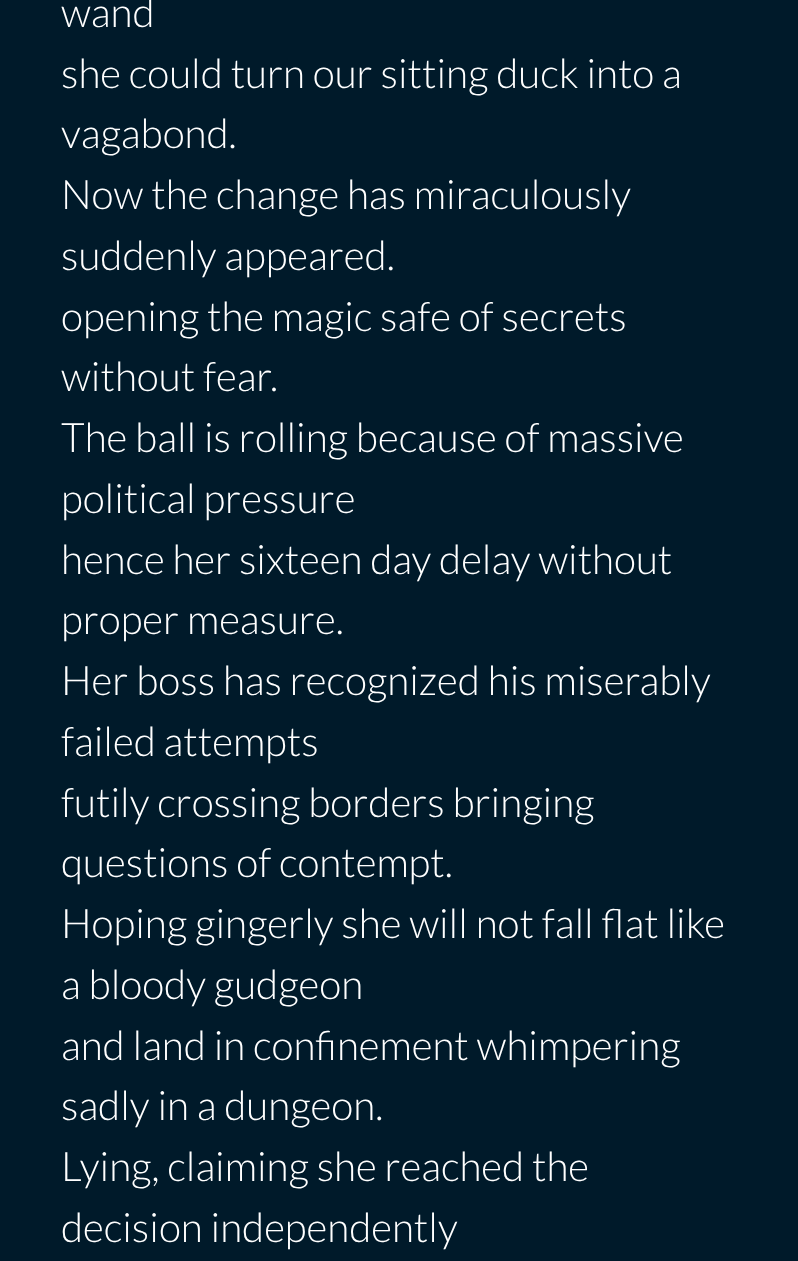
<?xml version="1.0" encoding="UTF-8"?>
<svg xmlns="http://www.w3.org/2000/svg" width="798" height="1261">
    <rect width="100%" height="100%" fill="#001A2A"/>
    <text font-family="Lato" font-size="40.5" font-weight="300" fill="#FFFFFF">
        <tspan x="61" y="27">wand</tspan>
        <tspan x="61" y="88">she could turn our sitting duck into a</tspan>
        <tspan x="61" y="148">vagabond.</tspan>
        <tspan x="61" y="209">Now the change has miraculously</tspan>
        <tspan x="61" y="270">suddenly appeared.</tspan>
        <tspan x="61" y="331">opening the magic safe of secrets</tspan>
        <tspan x="61" y="391">without fear.</tspan>
        <tspan x="61" y="452">The ball is rolling because of massive</tspan>
        <tspan x="61" y="513">political pressure</tspan>
        <tspan x="61" y="574">hence her sixteen day delay without</tspan>
        <tspan x="61" y="634">proper measure.</tspan>
        <tspan x="61" y="695">Her boss has recognized his miserably</tspan>
        <tspan x="61" y="756">failed attempts</tspan>
        <tspan x="61" y="817">futily crossing borders bringing</tspan>
        <tspan x="61" y="877">questions of contempt.</tspan>
        <tspan x="61" y="938">Hoping gingerly she will not fall flat like</tspan>
        <tspan x="61" y="999">a bloody gudgeon</tspan>
        <tspan x="61" y="1060">and land in confinement whimpering</tspan>
        <tspan x="61" y="1120">sadly in a dungeon.</tspan>
        <tspan x="61" y="1181">Lying, claiming she reached the</tspan>
        <tspan x="61" y="1242">decision independently</tspan>
    </text>
</svg>
